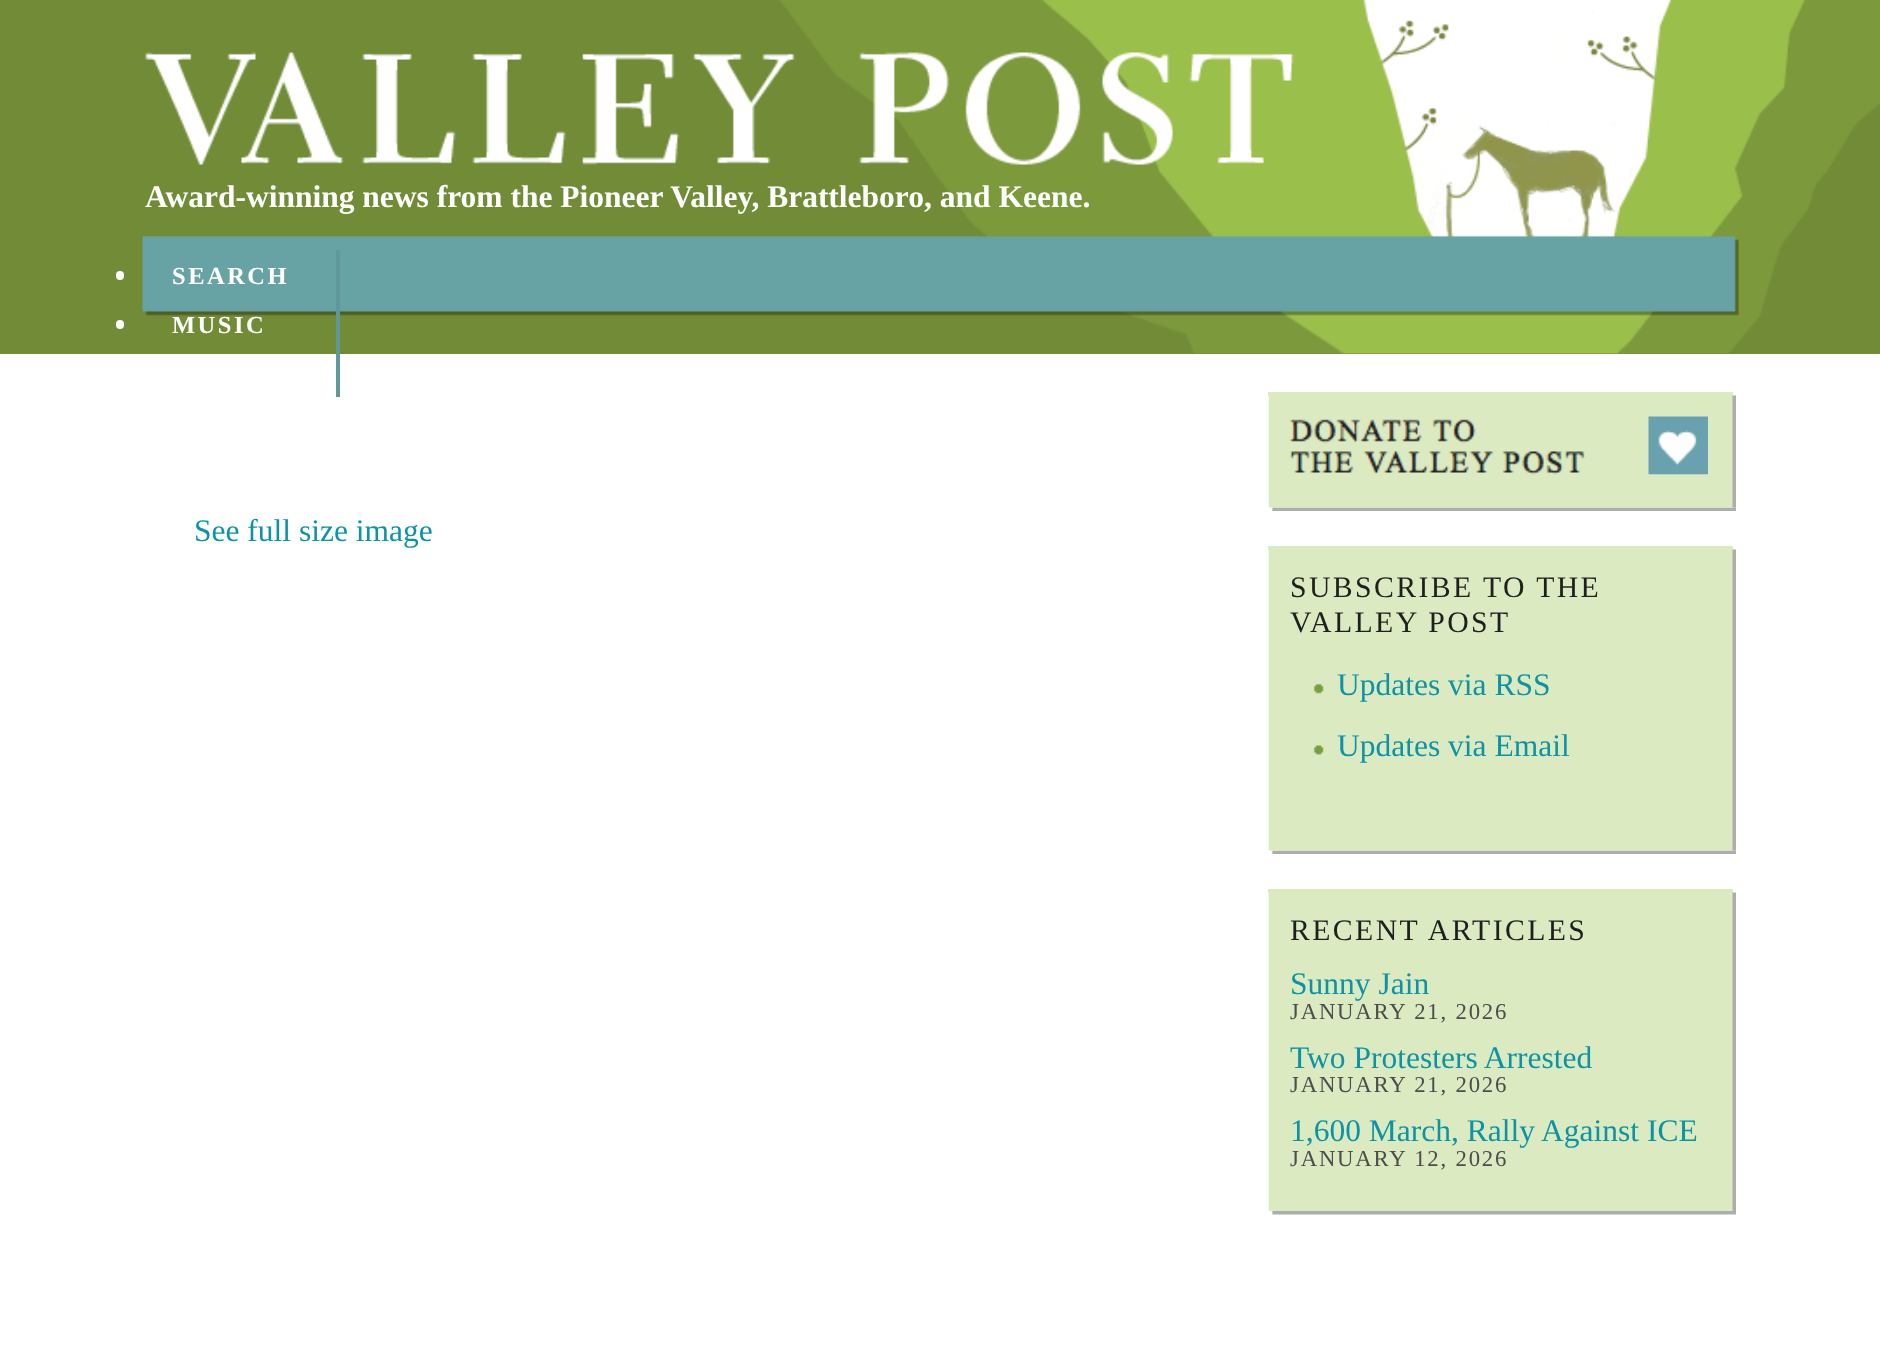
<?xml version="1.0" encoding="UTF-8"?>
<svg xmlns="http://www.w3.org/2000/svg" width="1880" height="1355">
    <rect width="100%" height="100%" fill="#FFFFFF"/>
    <rect x="0" y="0" width="1880" height="354" fill="#718B37"/>
    <image x="142" y="0" width="1738" height="354" href="img_01.png"/>
    <image x="145" y="52" width="1149" height="113" href="img_02.png"/>
    <text x="145" y="207" font-family="Liberation Serif" font-size="31.5" font-weight="700" fill="#FFFFFF">Award-winning news from the Pioneer Valley, Brattleboro, and Keene.</text>
    <rect x="336" y="250" width="4" height="147" fill="#609798"/>
    <rect x="116" y="271" width="8" height="9" rx="4" fill="#FFFFFF"/>
    <text x="172" y="284" font-family="Liberation Serif" font-size="24.5" font-weight="700" letter-spacing="2.5" fill="#FFFFFF">SEARCH</text>
    <rect x="116" y="320" width="8" height="9" rx="4" fill="#FFFFFF"/>
    <text x="172" y="333" font-family="Liberation Serif" font-size="24.5" font-weight="700" letter-spacing="2.5" fill="#FFFFFF">MUSIC</text>
    <text x="194" y="541" font-family="Liberation Serif" font-size="31.5" fill="#0D93A6">See full size image</text>
    <rect x="1268" y="392" width="465" height="4" fill="#DBEAC1"/>
    <image x="1271" y="507" width="465" height="4" href="img_03.png"/>
    <image x="1268" y="395" width="468" height="113" href="img_04.png"/>
    <image x="1289" y="416" width="419" height="59" href="img_05.png"/>
    <rect x="1268" y="546" width="465" height="4" fill="#DBEAC1"/>
    <image x="1271" y="850" width="465" height="4" href="img_03.png"/>
    <image x="1268" y="549" width="468" height="302" href="img_06.png"/>
    <text font-family="Liberation Serif" font-size="29.75" letter-spacing="2.4" fill="#1F1F1F">
        <tspan x="1290" y="597">SUBSCRIBE TO THE</tspan>
        <tspan x="1290" y="632">VALLEY POST</tspan>
    </text>
    <image x="1313" y="683" width="11" height="11" href="img_07.png"/>
    <text x="1337" y="695" font-family="Liberation Serif" font-size="31.5" fill="#0D93A6">Updates via RSS</text>
    <image x="1313" y="745" width="11" height="10" href="img_08.png"/>
    <text x="1337" y="756" font-family="Liberation Serif" font-size="31.5" fill="#0D93A6">Updates via Email</text>
    <rect x="1268" y="889" width="465" height="4" fill="#DBEAC1"/>
    <image x="1271" y="1211" width="465" height="4" href="img_09.png"/>
    <image x="1268" y="892" width="468" height="319" href="img_10.png"/>
    <text x="1290" y="940" font-family="Liberation Serif" font-size="29.75" letter-spacing="2.4" fill="#1F1F1F">RECENT ARTICLES</text>
    <text x="1290" y="994" font-family="Liberation Serif" font-size="31.5" fill="#0D93A6">Sunny Jain</text>
    <text x="1290" y="1019" font-family="Liberation Serif" font-size="22.75" letter-spacing="1.8" fill="#4D4D4D">JANUARY 21, 2026</text>
    <text x="1290" y="1068" font-family="Liberation Serif" font-size="31.5" fill="#0D93A6">Two Protesters Arrested</text>
    <text x="1290" y="1092" font-family="Liberation Serif" font-size="22.75" letter-spacing="1.8" fill="#4D4D4D">JANUARY 21, 2026</text>
    <text x="1290" y="1141" font-family="Liberation Serif" font-size="31.5" fill="#0D93A6">1,600 March, Rally Against ICE</text>
    <text x="1290" y="1166" font-family="Liberation Serif" font-size="22.75" letter-spacing="1.8" fill="#4D4D4D">JANUARY 12, 2026</text>
</svg>
